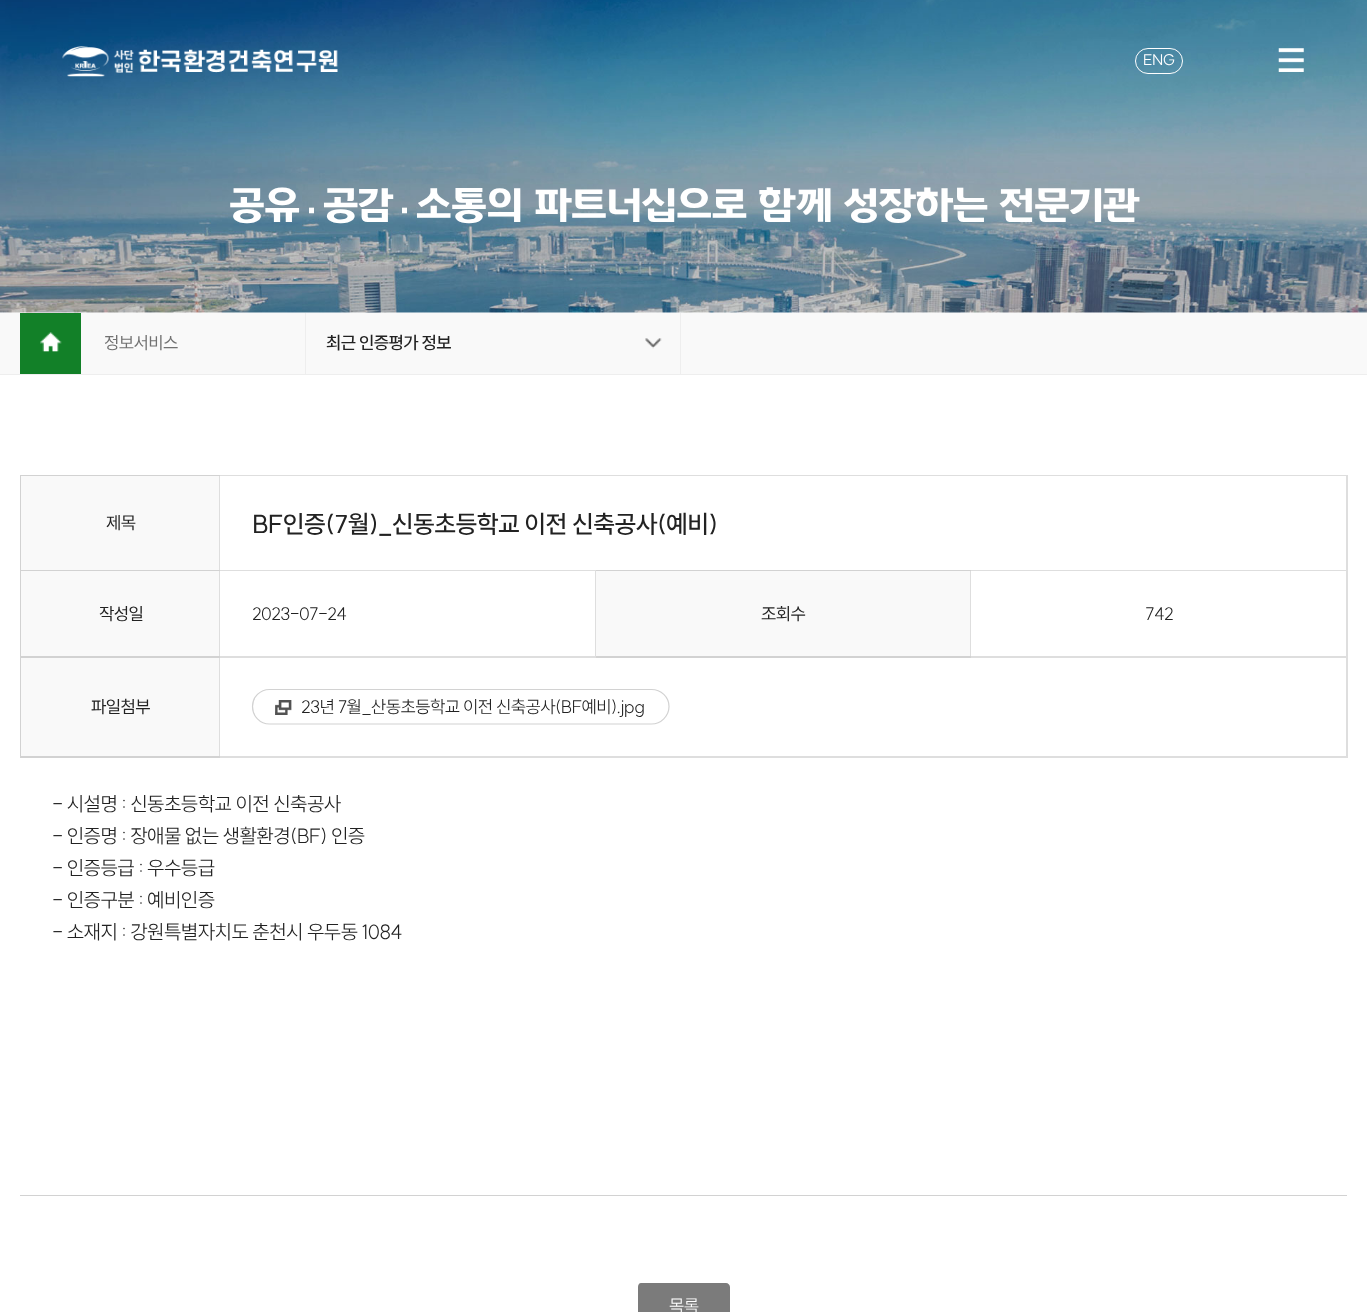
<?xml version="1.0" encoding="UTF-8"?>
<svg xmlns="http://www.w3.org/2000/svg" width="1367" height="1312">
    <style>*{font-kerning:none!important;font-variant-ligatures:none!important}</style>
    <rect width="100%" height="100%" fill="#FFFFFF"/>
    <image x="0" y="0" width="1367" height="313" href="img_03.png"/>
    <image x="62" y="46" width="276" height="31" href="img_01.png"/>
    <rect x="1135.5" y="48.5" width="47" height="25" rx="12.5" fill="none" stroke="#FFFFFF"/>
    <text x="1143" y="65" font-family="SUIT" font-size="15" letter-spacing="-0.6" fill="#FFFFFF">ENG</text>
    <image x="1278" y="48" width="26" height="24" href="img_02.png"/>
    <text x="229" y="224" font-family="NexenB" font-size="37.5" letter-spacing="-0.6" fill="#FFFFFF">공유·공감·소통의 파트너십으로 함께 성장하는 전문기관</text>
    <rect x="0" y="313" width="1367" height="61" fill="#F9F9F9"/>
    <rect x="0" y="374" width="1367" height="1" fill="#EEEEEE"/>
    <rect x="20" y="313" width="61" height="61" fill="#128028"/>
    <image x="40" y="332" width="22" height="20" href="img_04.png"/>
    <rect x="305" y="313" width="1" height="61" fill="#EEEEEE"/>
    <text x="104" y="349" font-family="SUIT" font-size="17.6" letter-spacing="-0.6" fill="#717171">정보서비스</text>
    <rect x="680" y="313" width="1" height="61" fill="#EEEEEE"/>
    <text x="326" y="349" font-family="SUIT" font-size="17.6" font-weight="500" letter-spacing="-0.6" fill="#222222">최근 인증평가 정보</text>
    <image x="645" y="338" width="17" height="11" href="img_05.png"/>
    <rect x="20" y="1195" width="1327" height="1" fill="#D2D2D2"/>
    <rect x="21" y="476" width="198" height="94" fill="#F9F9F9"/>
    <rect x="219" y="475" width="1129" height="1" fill="#DEDEDE"/>
    <rect x="970" y="570" width="378" height="1" fill="#DEDEDE"/>
    <path d="M 596 571 H 971 V 657 H 595 Z" fill="#F9F9F9"/>
    <rect x="219" y="656" width="1129" height="2" fill="#DEDEDE"/>
    <rect x="970" y="570" width="1" height="88" fill="#DEDEDE"/>
    <rect x="595" y="570" width="376" height="1" fill="#D2D2D2"/>
    <rect x="219" y="570" width="377" height="1" fill="#DEDEDE"/>
    <rect x="219" y="656" width="1" height="102" fill="#DEDEDE"/>
    <rect x="219" y="570" width="1" height="88" fill="#DEDEDE"/>
    <rect x="219" y="475" width="1" height="96" fill="#DEDEDE"/>
    <rect x="20" y="475" width="200" height="1" fill="#D2D2D2"/>
    <rect x="20" y="756" width="200" height="2" fill="#D2D2D2"/>
    <rect x="20" y="656" width="1" height="102" fill="#D2D2D2"/>
    <rect x="20" y="656" width="200" height="2" fill="#D2D2D2"/>
    <rect x="20" y="570" width="1" height="88" fill="#D2D2D2"/>
    <rect x="20" y="570" width="200" height="1" fill="#D2D2D2"/>
    <rect x="20" y="475" width="1" height="96" fill="#D2D2D2"/>
    <text x="106" y="529" font-family="SUIT" font-size="17.6" letter-spacing="-0.6" fill="#222222">제목</text>
    <rect x="220" y="756" width="1128" height="2" fill="#DEDEDE"/>
    <rect x="1346" y="656" width="2" height="102" fill="#DEDEDE"/>
    <rect x="1346" y="570" width="2" height="88" fill="#DEDEDE"/>
    <rect x="1346" y="475" width="2" height="96" fill="#DEDEDE"/>
    <text x="252" y="533" font-family="SUIT" font-size="25" font-weight="500" letter-spacing="-0.6" fill="#222222">BF인증(7월)_신동초등학교 이전 신축공사(예비)</text>
    <rect x="21" y="571" width="198" height="85" fill="#F9F9F9"/>
    <text x="99" y="620" font-family="SUIT" font-size="17.6" letter-spacing="-0.6" fill="#222222">작성일</text>
    <rect x="595" y="656" width="376" height="2" fill="#D2D2D2"/>
    <rect x="595" y="570" width="1" height="88" fill="#DEDEDE"/>
    <text x="252" y="620" font-family="SUIT" font-size="17.6" font-weight="300" letter-spacing="-0.6" fill="#222222">2023-07-24</text>
    <text x="761" y="620" font-family="SUIT" font-size="17.6" letter-spacing="-0.6" fill="#222222">조회수</text>
    <text x="1145" y="620" font-family="SUIT" font-size="17.6" font-weight="300" letter-spacing="-0.6" fill="#222222">742</text>
    <rect x="21" y="658" width="198" height="98" fill="#F9F9F9"/>
    <text x="91" y="713" font-family="SUIT" font-size="17.6" letter-spacing="-0.6" fill="#222222">파일첨부</text>
    <image x="275" y="700" width="17" height="15" href="img_06.png"/>
    <path d="M 269.5 689.5 H 651.5 C 661 689.5 669 697 669 706.5 C 669 716 661 724 651.5 724 H 269.5 C 260 724 252.5 716 252.5 706.5 C 252.5 697 260 689.5 269.5 689.5 Z" fill="none" stroke="#D2D2D2" stroke-width="1.2"/>
    <text x="301" y="713" font-family="SUIT" font-size="17.6" font-weight="300" letter-spacing="-0.6" fill="#222222">23년 7월_산동초등학교 이전 신축공사(BF예비).jpg</text>
    <text font-family="SUIT" font-size="20" font-weight="300" letter-spacing="-0.6" fill="#222222">
        <tspan x="52" y="811">- 시설명 : 신동초등학교 이전 신축공사</tspan>
        <tspan x="52" y="843">- 인증명 : 장애물 없는 생활환경(BF) 인증</tspan>
        <tspan x="52" y="875">- 인증등급 : 우수등급</tspan>
        <tspan x="52" y="907">- 인증구분 : 예비인증</tspan>
        <tspan x="52" y="939">- 소재지 : 강원특별자치도 춘천시 우두동 1084</tspan>
    </text>
    <path d="M 641 1283 H 726 C 728 1283 730 1285 730 1287 V 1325 C 730 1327 728 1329 726 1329 H 641 C 639 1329 638 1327 638 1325 V 1287 C 638 1285 639 1283 641 1283 Z" fill="#7B7B7B"/>
    <text x="669" y="1312" font-family="SUIT" font-size="17.6" font-weight="300" letter-spacing="-0.6" fill="#FFFFFF">목록</text>
</svg>
